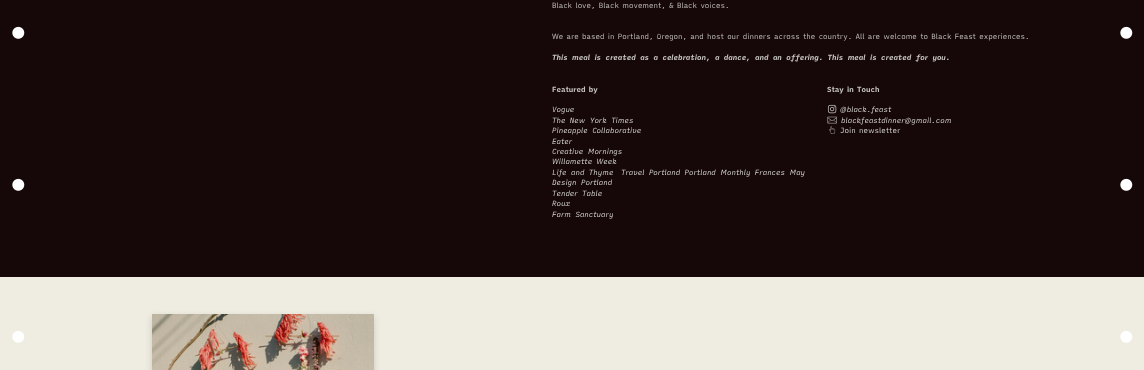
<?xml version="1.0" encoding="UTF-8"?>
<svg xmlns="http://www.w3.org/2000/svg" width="1144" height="370">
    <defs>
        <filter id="blur1" x="-50%" y="-200%" width="200%" height="500%"><feGaussianBlur stdDeviation="3.5"/></filter>
    </defs>
    <rect width="100%" height="100%" fill="#EFEDE1"/>
    <rect x="0" y="0" width="1144" height="277" fill="#160808"/>
    <text x="552" y="8" font-family="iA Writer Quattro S" font-size="7.45" fill="#C5C1C1">Black love, Black movement, &amp; Black voices.</text>
    <text x="552" y="39" font-family="iA Writer Quattro S" font-size="7.45" fill="#C5C1C1">We are based in Portland, Oregon, and host our dinners across the country. All are welcome to Black Feast experiences.</text>
    <text x="552" y="60" font-family="iA Writer Quattro S" font-size="7.45" font-weight="700" font-style="italic" fill="#C5C1C1">This meal is created as a celebration, a dance, and an offering. This meal is created for you.</text>
    <text x="552" y="92" font-family="iA Writer Quattro S" font-size="7.45" font-weight="700" fill="#C5C1C1">Featured by</text>
    <text font-family="iA Writer Quattro S" font-size="7.45" font-style="italic" fill="#DCDADA">
        <tspan x="552" y="112">Vogue</tspan>
        <tspan x="552" y="123">The New York Times</tspan>
        <tspan x="552" y="133">Pineapple Collaborative</tspan>
        <tspan x="552" y="144">Eater</tspan>
        <tspan x="552" y="154">Creative Mornings</tspan>
        <tspan x="552" y="164">Willamette Week</tspan>
        <tspan x="552" y="175">Life and Thyme</tspan>
    </text>
    <text x="621" y="175" font-family="iA Writer Quattro S" font-size="7.45" font-style="italic" fill="#DCDADA">Travel Portland Portland Monthly Frances May</text>
    <text font-family="iA Writer Quattro S" font-size="7.45" font-style="italic" fill="#DCDADA">
        <tspan x="552" y="185">Design Portland</tspan>
        <tspan x="552" y="196">Tender Table</tspan>
        <tspan x="552" y="206">Roux</tspan>
        <tspan x="552" y="217">Farm Sanctuary</tspan>
    </text>
    <text x="827" y="92" font-family="iA Writer Quattro S" font-size="7.45" font-weight="700" fill="#C5C1C1">Stay in Touch</text>
    <image x="827" y="104" width="10" height="10" href="img_01.png"/>
    <text x="840" y="112" font-family="iA Writer Quattro S" font-size="7.45" font-style="italic" fill="#DCDADA">@black.feast</text>
    <image x="827" y="116" width="10" height="8" href="img_02.png"/>
    <text x="841" y="123" font-family="iA Writer Quattro S" font-size="7.45" font-style="italic" fill="#DCDADA">blackfeastdinner@gmail.com</text>
    <image x="829" y="126" width="7" height="8" href="img_03.png"/>
    <text x="840" y="133" font-family="iA Writer Quattro S" font-size="7.45" fill="#DCDADA">Join newsletter</text>
    <rect x="152" y="317" width="222" height="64" fill="#000000" fill-opacity="0.15" filter="url(#blur1)"/>
    <image x="152" y="314" width="222" height="56" href="img_04.png"/>
    <image x="12" y="26" width="13" height="13" href="img_05.png"/>
    <image x="1120" y="26" width="13" height="13" href="img_05.png"/>
    <image x="12" y="331" width="13" height="12" href="img_06.png"/>
    <image x="1120" y="331" width="13" height="12" href="img_06.png"/>
    <image x="12" y="178" width="13" height="13" href="img_05.png"/>
    <image x="1120" y="178" width="13" height="13" href="img_05.png"/>
</svg>
